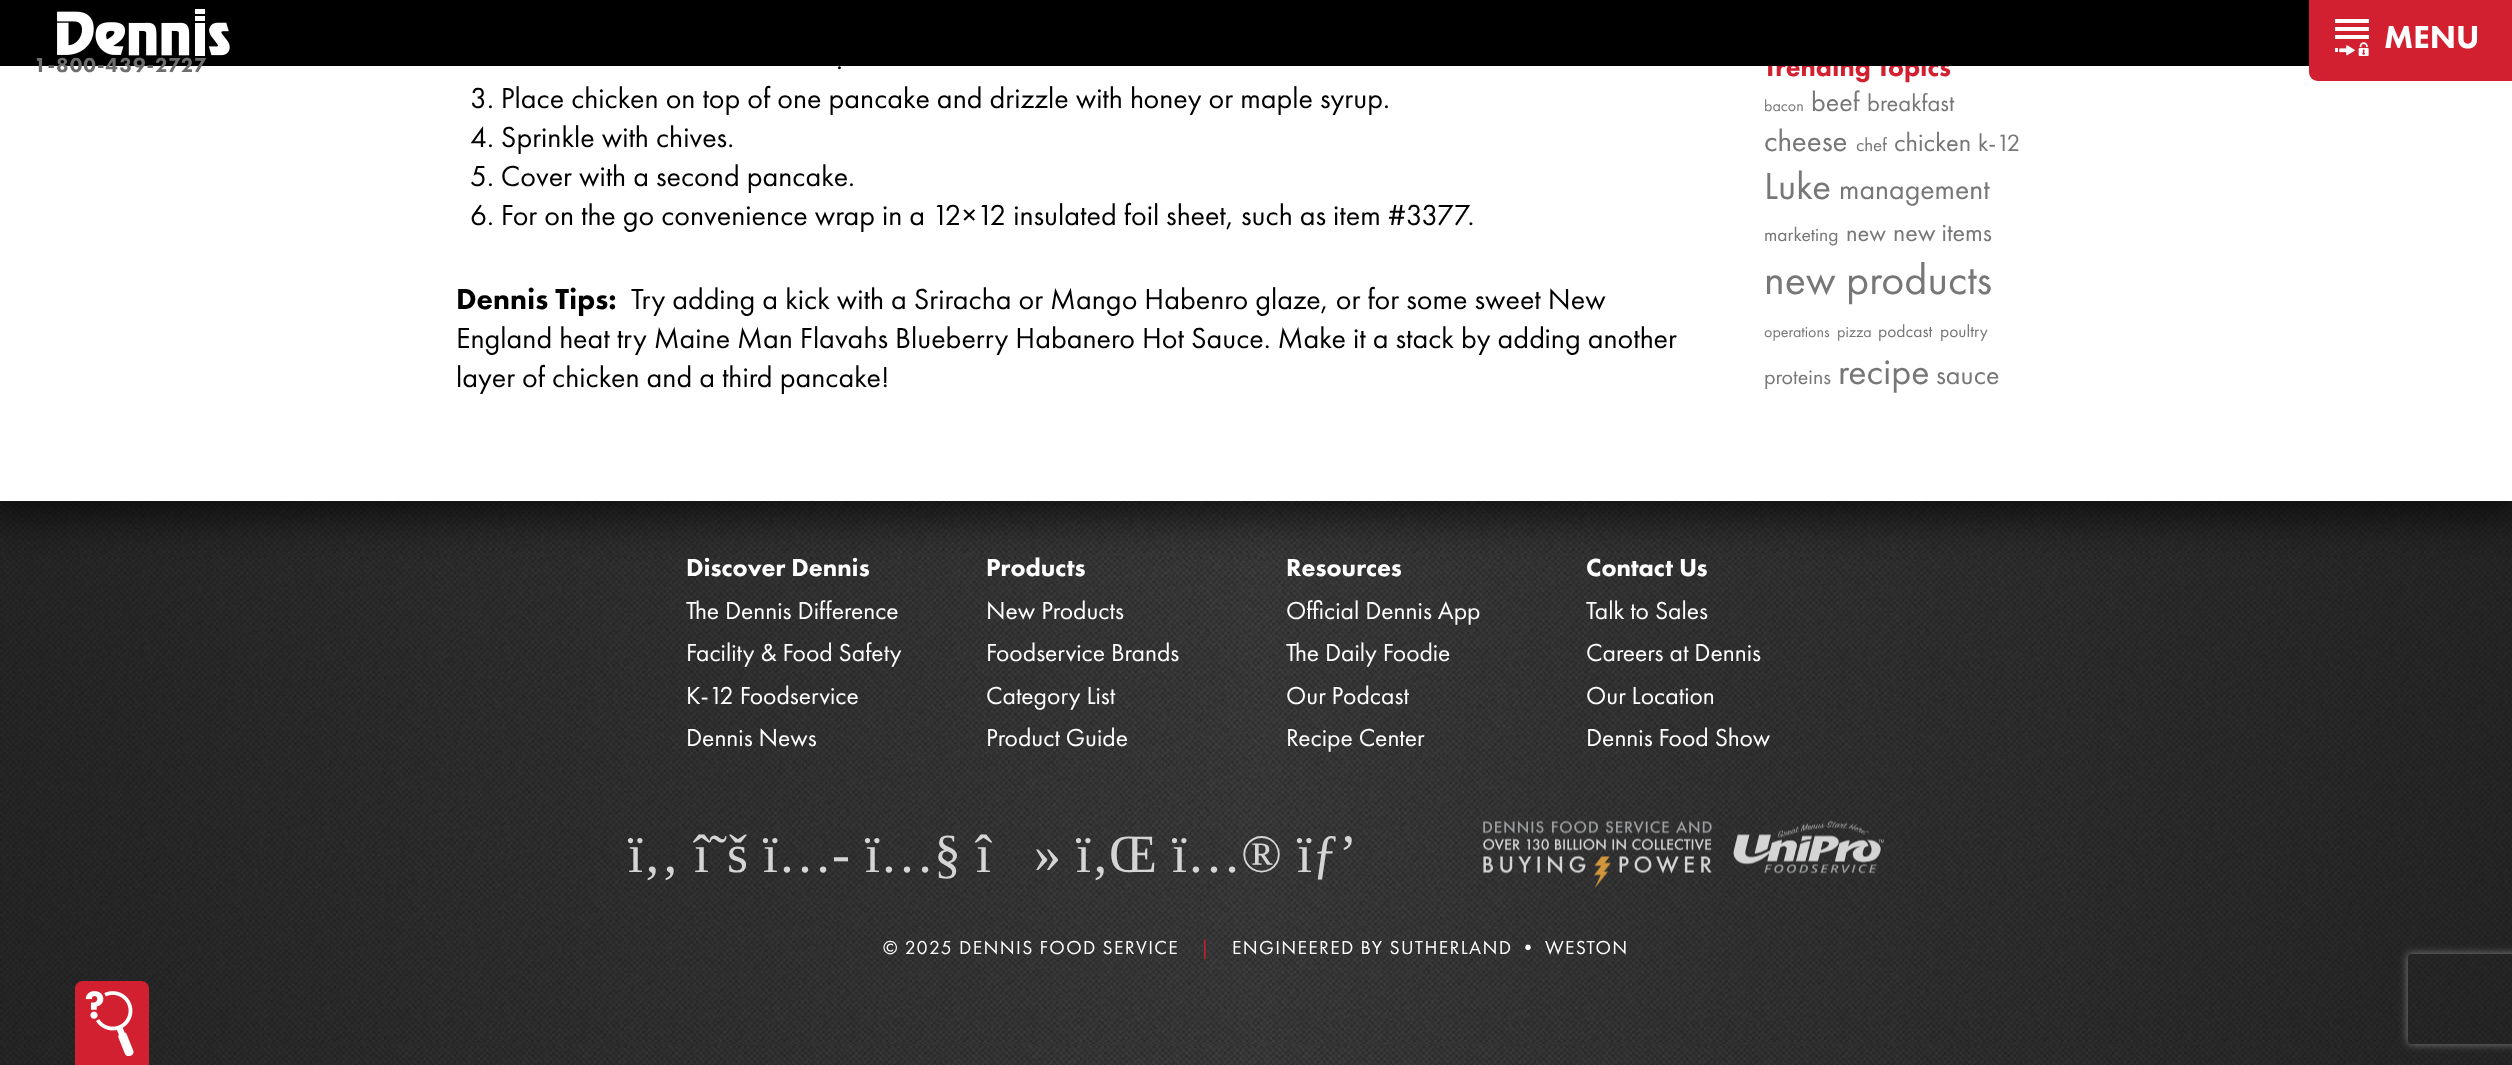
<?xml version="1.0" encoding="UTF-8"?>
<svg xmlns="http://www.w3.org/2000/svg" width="2512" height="1065">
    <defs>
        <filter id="blur1" x="-50%" y="-200%" width="200%" height="500%"><feGaussianBlur stdDeviation="22.5"/></filter>
        <clipPath id="clip1"><path d="M 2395 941 H 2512 V 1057 H 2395 Z M 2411 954 H 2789 C 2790.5 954 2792 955.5 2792 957 V 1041 C 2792 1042.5 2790.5 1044 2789 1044 H 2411 C 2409.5 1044 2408 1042.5 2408 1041 V 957 C 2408 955.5 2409.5 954 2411 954 Z" clip-rule="evenodd"/></clipPath>
        <filter id="blur2" x="-50%" y="-200%" width="200%" height="500%"><feGaussianBlur stdDeviation="4"/></filter>
    </defs>
    <rect width="100%" height="100%" fill="#FFFFFF"/>
    <image x="0" y="501" width="2512" height="564" href="img_01.png"/>
    <rect x="-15" y="-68" width="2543" height="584" fill="#000000" fill-opacity="0.7" filter="url(#blur1)"/>
    <rect x="0" y="66" width="2512" height="435" fill="#FFFFFF"/>
    <text x="1764" y="76" font-family="Futura PT" font-size="27" font-weight="900" fill="#D22030">Trending Topics</text>
    <rect x="0" y="0" width="2309" height="66" fill="#000000"/>
    <path d="M 2318 -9 H 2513 V 81 H 2318 C 2313 81 2309 77 2309 72 V 0 C 2309 -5 2313 -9 2318 -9 Z" fill="#D22030"/>
    <image x="2335" y="19" width="34" height="37" href="img_02.png"/>
    <text x="2384" y="48" font-family="Futura PT" font-size="33" font-weight="900" fill="#FFFFFF">MENU</text>
    <image x="57" y="9" width="173" height="47" href="img_03.png"/>
    <text x="34" y="72" font-family="Futura PT" font-size="21" font-weight="900" letter-spacing="1" fill="#6E6E6E">1-800-439-2727</text>
    <text x="836" y="69" font-family="Futura PT" font-size="30" fill="#000000">.</text>
    <text font-family="Futura PT" font-size="30" fill="#000000">
        <tspan x="470" y="108">3. Place chicken on top of one pancake and drizzle with honey or maple syrup.</tspan>
        <tspan x="470" y="147">4. Sprinkle with chives.</tspan>
        <tspan x="470" y="186">5. Cover with a second pancake.</tspan>
        <tspan x="470" y="225">6. For on the go convenience wrap in a 12×12 insulated foil sheet, such as item #3377.</tspan>
    </text>
    <text x="456" y="309" font-family="Futura PT" font-size="30" font-weight="900" fill="#000000">Dennis Tips:</text>
    <text x="631" y="309" font-family="Futura PT" font-size="30" fill="#000000">Try adding a kick with a Sriracha or Mango Habenro glaze, or for some sweet New</text>
    <text font-family="Futura PT" font-size="30" fill="#000000">
        <tspan x="456" y="348">England heat try Maine Man Flavahs Blueberry Habanero Hot Sauce. Make it a stack by adding another</tspan>
        <tspan x="456" y="387">layer of chicken and a third pancake!</tspan>
    </text>
    <text x="1764" y="111" font-family="Futura PT" font-size="16" fill="#777777">bacon</text>
    <text x="1811" y="111" font-family="Futura PT" font-size="28" fill="#777777">beef</text>
    <text x="1867" y="111" font-family="Futura PT" font-size="24.5" fill="#777777">breakfast</text>
    <text x="1764" y="151" font-family="Futura PT" font-size="31" fill="#777777">cheese</text>
    <text x="1856" y="151" font-family="Futura PT" font-size="19" fill="#777777">chef</text>
    <text x="1894" y="151" font-family="Futura PT" font-size="26.5" fill="#777777">chicken</text>
    <text x="1978" y="151" font-family="Futura PT" font-size="24.5" fill="#777777">k-12</text>
    <text x="1764" y="199" font-family="Futura PT" font-size="39" fill="#777777">Luke</text>
    <text x="1839" y="199" font-family="Futura PT" font-size="29.75" fill="#777777">management</text>
    <text x="1764" y="241" font-family="Futura PT" font-size="19.5" fill="#777777">marketing</text>
    <text x="1846" y="241" font-family="Futura PT" font-size="24.5" fill="#777777">new</text>
    <text x="1893" y="241" font-family="Futura PT" font-size="26" fill="#777777">new items</text>
    <text x="1764" y="294" font-family="Futura PT" font-size="44" fill="#777777">new products</text>
    <text x="1764" y="337" font-family="Futura PT" font-size="16" fill="#777777">operations</text>
    <text x="1837" y="337" font-family="Futura PT" font-size="16" fill="#777777">pizza</text>
    <text x="1878" y="337" font-family="Futura PT" font-size="17.5" fill="#777777">podcast</text>
    <text x="1940" y="337" font-family="Futura PT" font-size="17.5" fill="#777777">poultry</text>
    <text x="1764" y="384" font-family="Futura PT" font-size="22" fill="#777777">proteins</text>
    <text x="1838" y="384" font-family="Futura PT" font-size="38" fill="#777777">recipe</text>
    <text x="1936" y="384" font-family="Futura PT" font-size="28" fill="#777777">sauce</text>
    <text x="686" y="576" font-family="Futura PT" font-size="25.5" font-weight="900" fill="#FFFFFF">Discover Dennis</text>
    <text font-family="Futura PT" font-size="25.5" fill="#FFFFFF">
        <tspan x="686" y="619">The Dennis Difference</tspan>
        <tspan x="686" y="661">Facility &amp; Food Safety</tspan>
        <tspan x="686" y="704">K-12 Foodservice</tspan>
        <tspan x="686" y="746">Dennis News</tspan>
    </text>
    <text x="986" y="576" font-family="Futura PT" font-size="25.5" font-weight="900" fill="#FFFFFF">Products</text>
    <text font-family="Futura PT" font-size="25.5" fill="#FFFFFF">
        <tspan x="986" y="619">New Products</tspan>
        <tspan x="986" y="661">Foodservice Brands</tspan>
        <tspan x="986" y="704">Category List</tspan>
        <tspan x="986" y="746">Product Guide</tspan>
    </text>
    <text x="1286" y="576" font-family="Futura PT" font-size="25.5" font-weight="900" fill="#FFFFFF">Resources</text>
    <text font-family="Futura PT" font-size="25.5" fill="#FFFFFF">
        <tspan x="1286" y="619">Official Dennis App</tspan>
        <tspan x="1286" y="661">The Daily Foodie</tspan>
        <tspan x="1286" y="704">Our Podcast</tspan>
        <tspan x="1286" y="746">Recipe Center</tspan>
    </text>
    <text x="1586" y="576" font-family="Futura PT" font-size="25.5" font-weight="900" fill="#FFFFFF">Contact Us</text>
    <text font-family="Futura PT" font-size="25.5" fill="#FFFFFF">
        <tspan x="1586" y="619">Talk to Sales</tspan>
        <tspan x="1586" y="661">Careers at Dennis</tspan>
        <tspan x="1586" y="704">Our Location</tspan>
        <tspan x="1586" y="746">Dennis Food Show</tspan>
    </text>
    <text x="628" y="872" font-family="Liberation Serif" font-size="54" fill="#D5D5D5">ï‚‚</text>
    <text x="694" y="872" font-family="Liberation Serif" font-size="54" fill="#D5D5D5">î˜š</text>
    <text x="763" y="872" font-family="Liberation Serif" font-size="54" fill="#D5D5D5">ï…-</text>
    <text x="865" y="872" font-family="Liberation Serif" font-size="54" fill="#D5D5D5">ï…§</text>
    <text x="976" y="872" font-family="Liberation Serif" font-size="54" fill="#D5D5D5">î</text>
    <text x="1034" y="872" font-family="Liberation Serif" font-size="54" fill="#D5D5D5">»</text>
    <text x="1076" y="872" font-family="Liberation Serif" font-size="54" fill="#D5D5D5">ï‚Œ</text>
    <text x="1172" y="872" font-family="Liberation Serif" font-size="54" fill="#D5D5D5">ï…®</text>
    <text x="1297" y="872" font-family="Liberation Serif" font-size="54" fill="#D5D5D5">ïƒ’</text>
    <image x="1483" y="820" width="401" height="69" href="img_04.png"/>
    <text x="883" y="954" font-family="Futura PT" font-size="19.5" letter-spacing="1.35" fill="#FFFFFF">© 2025 DENNIS FOOD SERVICE</text>
    <text x="1200" y="954" font-family="Futura PT" font-size="19.5" letter-spacing="1.35" fill="#D22030">|</text>
    <text x="1232" y="954" font-family="Futura PT" font-size="19.5" letter-spacing="1.35" fill="#FFFFFF">ENGINEERED BY SUTHERLAND • WESTON</text>
    <path d="M 83 981 H 141 C 145.5 981 149 984.5 149 989 V 1065 H 75 V 989 C 75 984.5 78.5 981 83 981 Z" fill="#D22030"/>
    <image x="85" y="991" width="49" height="65" href="img_05.png"/>
    <g clip-path="url(#clip1)">
        <rect x="2408" y="954" width="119" height="90" rx="3" fill="#808080" filter="url(#blur2)"/>
    </g>
</svg>
